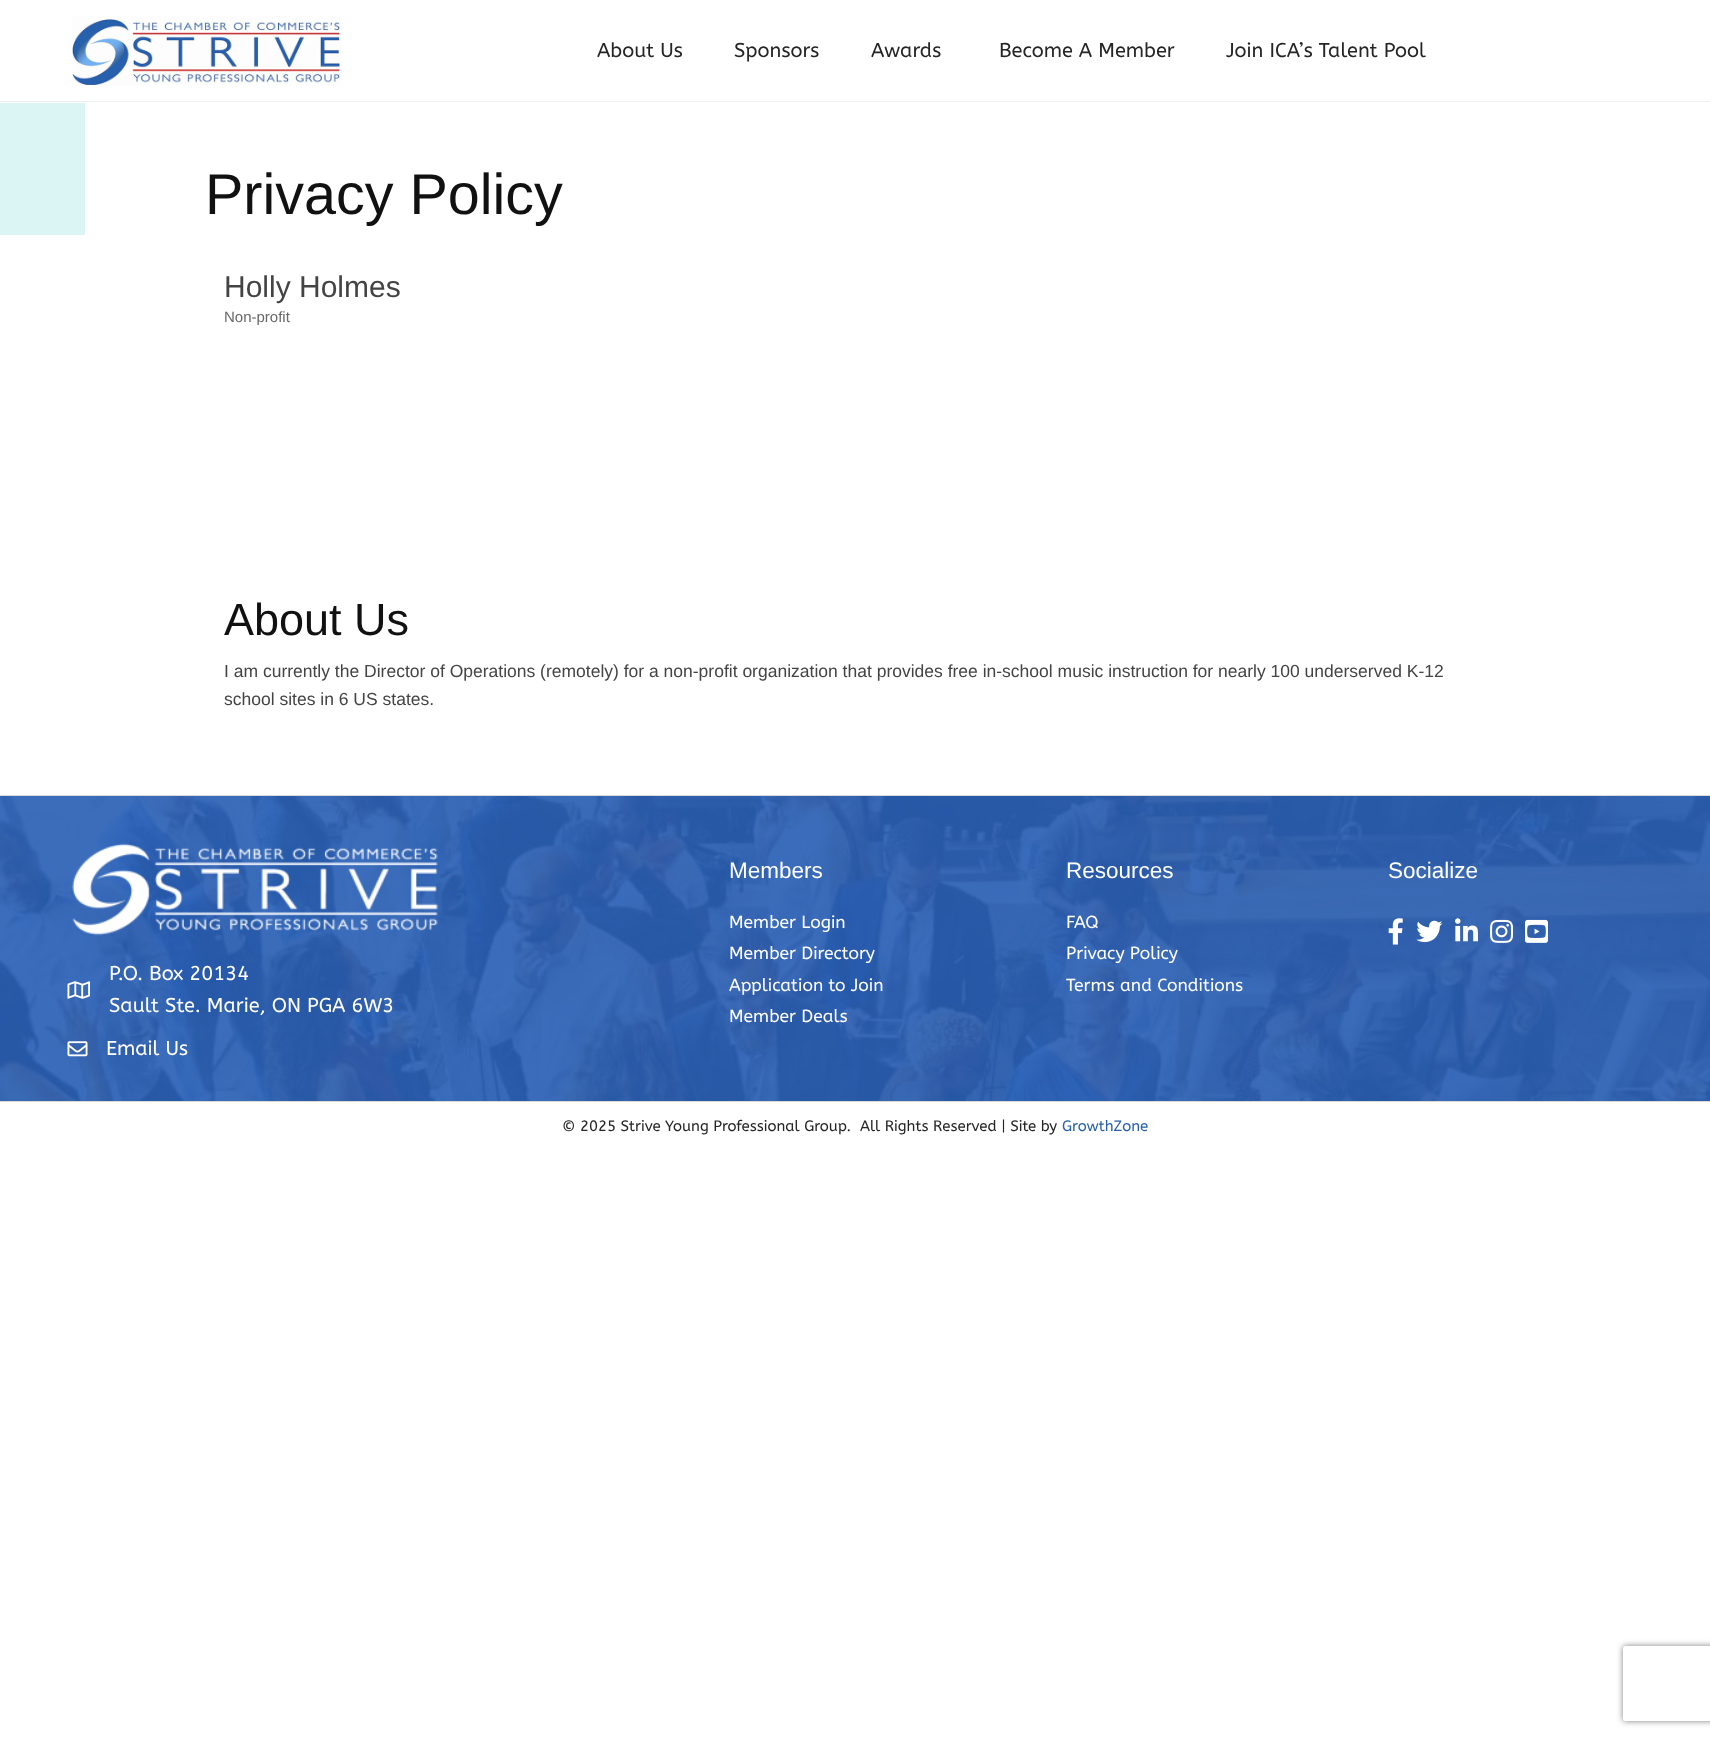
<?xml version="1.0" encoding="UTF-8"?>
<svg xmlns="http://www.w3.org/2000/svg" width="1710" height="1738">
    <defs>
        <clipPath id="clip1"><path d="M 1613 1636 H 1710 V 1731 H 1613 Z M 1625.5 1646 H 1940.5 C 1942 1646 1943 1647 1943 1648.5 V 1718.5 C 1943 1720 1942 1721 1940.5 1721 H 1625.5 C 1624 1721 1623 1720 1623 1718.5 V 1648.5 C 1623 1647 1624 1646 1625.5 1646 Z" clip-rule="evenodd"/></clipPath>
        <filter id="blur1" x="-50%" y="-200%" width="200%" height="500%"><feGaussianBlur stdDeviation="3"/></filter>
    </defs>
    <rect width="100%" height="100%" fill="#FFFFFF"/>
    <rect x="0" y="101" width="1710" height="1" fill="#EFEFEF"/>
    <image x="72" y="16" width="270" height="70" href="img_01.png"/>
    <text x="597" y="57" font-family="ABeeZee" font-size="20" fill="#252525">About Us</text>
    <text x="734" y="57" font-family="ABeeZee" font-size="20" fill="#252525">Sponsors</text>
    <text x="871" y="57" font-family="ABeeZee" font-size="20" fill="#252525">Awards</text>
    <text x="999" y="57" font-family="ABeeZee" font-size="20" fill="#252525">Become A Member</text>
    <text x="1226" y="57" font-family="ABeeZee" font-size="20" fill="#252525">Join ICA’s Talent Pool</text>
    <rect x="0" y="103" width="85" height="132" fill="#DAF5F4"/>
    <text x="205" y="214" font-family="Liberation Sans" font-size="57.5" fill="#111111">Privacy Policy</text>
    <text x="224" y="297" font-family="Liberation Sans" font-size="30" fill="#444444">Holly Holmes</text>
    <text x="224" y="322" font-family="Liberation Sans" font-size="15" fill="#696969">Non-profit</text>
    <text x="224" y="635" font-family="Liberation Sans" font-size="45" fill="#111111">About Us</text>
    <text font-family="Liberation Sans" font-size="17.5" fill="#444444">
        <tspan x="224" y="677">I am currently the Director of Operations (remotely) for a non-profit organization that provides free in-school music instruction for nearly 100 underserved K-12</tspan>
        <tspan x="224" y="705">school sites in 6 US states.</tspan>
    </text>
    <image x="0" y="796" width="1710" height="305" href="img_02.png"/>
    <rect x="0" y="795" width="1710" height="1" fill="#DADADA"/>
    <text x="729" y="878" font-family="Liberation Sans" font-size="22.5" fill="#FFFFFF">Members</text>
    <text font-family="ABeeZee" font-size="17.5" fill="#FFFFFF">
        <tspan x="729" y="928">Member Login</tspan>
        <tspan x="729" y="959">Member Directory</tspan>
        <tspan x="729" y="991">Application to Join</tspan>
        <tspan x="729" y="1022">Member Deals</tspan>
    </text>
    <text x="1066" y="878" font-family="Liberation Sans" font-size="22.5" fill="#FFFFFF">Resources</text>
    <text font-family="ABeeZee" font-size="17.5" fill="#FFFFFF">
        <tspan x="1066" y="928">FAQ</tspan>
        <tspan x="1066" y="959">Privacy Policy</tspan>
        <tspan x="1066" y="991">Terms and Conditions</tspan>
    </text>
    <text x="1388" y="878" font-family="Liberation Sans" font-size="22.5" fill="#FFFFFF">Socialize</text>
    <image x="1388" y="918" width="15" height="27" href="img_03.png"/>
    <image x="1416" y="920" width="27" height="23" href="img_04.png"/>
    <image x="1455" y="918" width="23" height="24" href="img_05.png"/>
    <image x="1490" y="919" width="23" height="24" href="img_06.png"/>
    <image x="1525" y="919" width="23" height="24" href="img_07.png"/>
    <image x="72" y="843" width="366" height="93" href="img_08.png"/>
    <image x="67" y="981" width="23" height="18" href="img_09.png"/>
    <text font-family="ABeeZee" font-size="20" fill="#FFFFFF">
        <tspan x="109" y="980">P.O. Box 20134</tspan>
        <tspan x="109" y="1012">Sault Ste. Marie, ON PGA 6W3</tspan>
    </text>
    <image x="67" y="1041" width="21" height="16" href="img_10.png"/>
    <text x="106" y="1055" font-family="ABeeZee" font-size="20" fill="#FFFFFF">Email Us</text>
    <rect x="0" y="1101" width="1710" height="1" fill="#DADADA"/>
    <text x="562" y="1131" font-family="ABeeZee" font-size="15" fill="#252525">© 2025 Strive Young Professional Group.</text>
    <text x="860" y="1131" font-family="ABeeZee" font-size="15" fill="#252525">All Rights Reserved | Site by</text>
    <text x="1062" y="1131" font-family="ABeeZee" font-size="15" fill="#2761AB">GrowthZone</text>
    <g clip-path="url(#clip1)">
        <rect x="1623" y="1646" width="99" height="75" rx="2.5" fill="#808080" filter="url(#blur1)"/>
    </g>
</svg>
